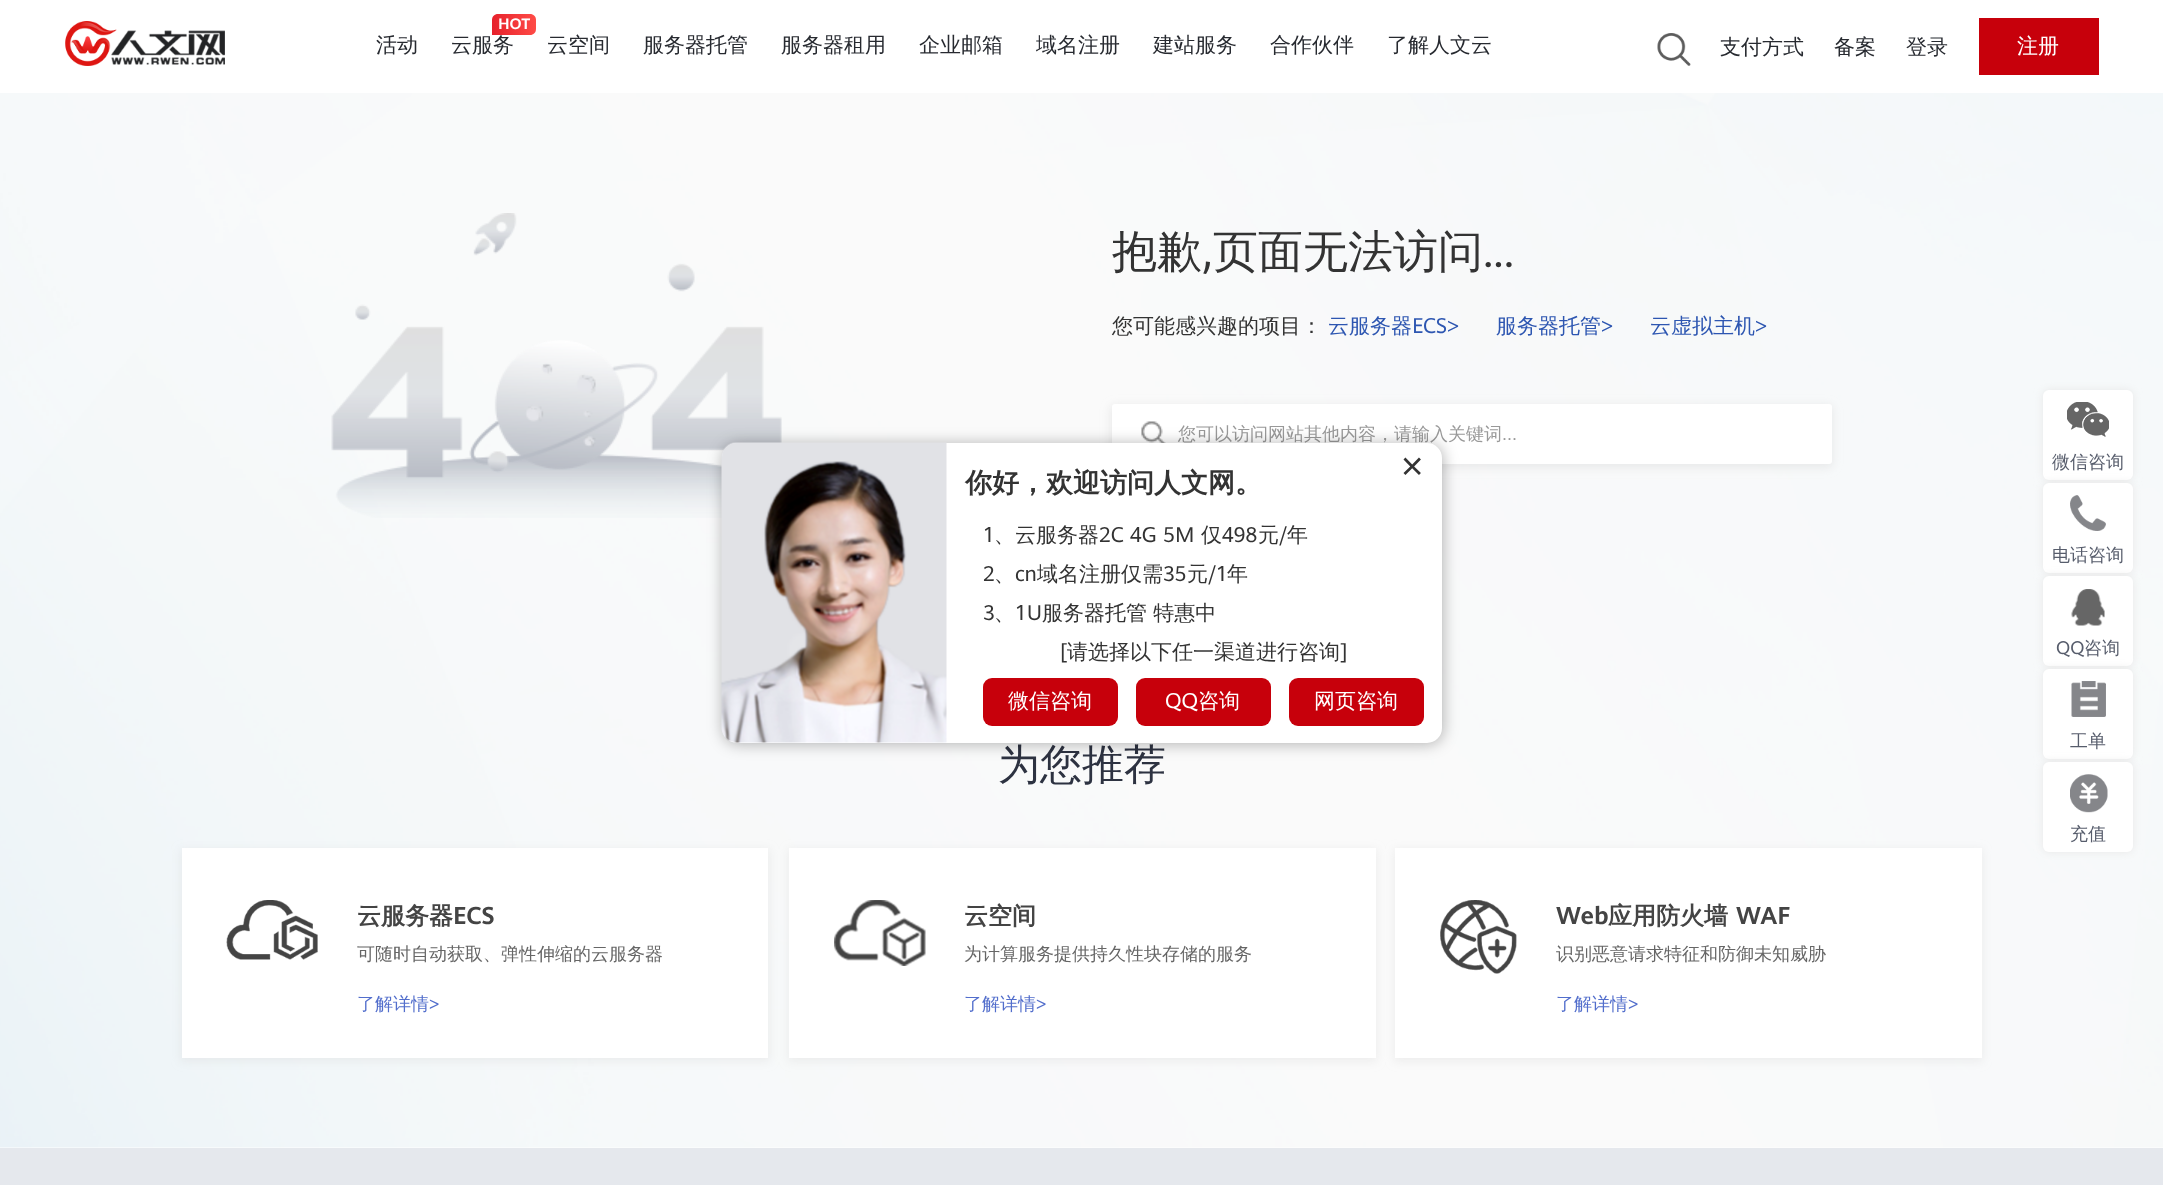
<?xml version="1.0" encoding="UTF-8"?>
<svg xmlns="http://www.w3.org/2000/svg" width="2163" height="1185">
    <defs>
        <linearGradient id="g1" gradientUnits="userSpaceOnUse" x1="537" y1="21" x2="491" y2="25"><stop offset="0.01" stop-color="#FF4C47"/><stop offset="1" stop-color="#E6202B"/></linearGradient>
        <filter id="blur1" x="-50%" y="-200%" width="200%" height="500%"><feGaussianBlur stdDeviation="5"/></filter>
        <filter id="blur2" x="-50%" y="-200%" width="200%" height="500%"><feGaussianBlur stdDeviation="4"/></filter>
        <filter id="blur3" x="-50%" y="-200%" width="200%" height="500%"><feGaussianBlur stdDeviation="7.5"/></filter>
    </defs>
    <rect width="100%" height="100%" fill="#FFFFFF"/>
    <image x="65" y="21" width="160" height="45" href="img_01.png"/>
    <text x="376" y="52" font-family="WenQuanYi Zen Hei" font-size="21" font-weight="500" fill="#272A30">活动</text>
    <path d="M 498 14 H 530 C 533.5 14 536 16.5 536 20 V 29 C 536 32.5 533.5 35 530 35 H 492 V 20 C 492 16.5 494.5 14 498 14 Z" fill="url(#g1)"/>
    <text x="498" y="29" font-family="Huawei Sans" font-size="15" font-weight="700" fill="#FFFFFF">HOT</text>
    <text x="451" y="52" font-family="WenQuanYi Zen Hei" font-size="21" font-weight="500" fill="#272A30">云服务</text>
    <text x="547" y="52" font-family="WenQuanYi Zen Hei" font-size="21" font-weight="500" fill="#272A30">云空间</text>
    <text x="643" y="52" font-family="WenQuanYi Zen Hei" font-size="21" font-weight="500" fill="#272A30">服务器托管</text>
    <text x="781" y="52" font-family="WenQuanYi Zen Hei" font-size="21" font-weight="500" fill="#272A30">服务器租用</text>
    <text x="919" y="52" font-family="WenQuanYi Zen Hei" font-size="21" font-weight="500" fill="#272A30">企业邮箱</text>
    <text x="1036" y="52" font-family="WenQuanYi Zen Hei" font-size="21" font-weight="500" fill="#272A30">域名注册</text>
    <text x="1153" y="52" font-family="WenQuanYi Zen Hei" font-size="21" font-weight="500" fill="#272A30">建站服务</text>
    <text x="1270" y="52" font-family="WenQuanYi Zen Hei" font-size="21" font-weight="500" fill="#272A30">合作伙伴</text>
    <text x="1387" y="52" font-family="WenQuanYi Zen Hei" font-size="21" font-weight="500" fill="#272A30">了解人文云</text>
    <image x="1657" y="33" width="34" height="33" href="img_02.png"/>
    <text x="1720" y="54" font-family="WenQuanYi Zen Hei" font-size="21" font-weight="500" fill="#272A30">支付方式</text>
    <text x="1834" y="54" font-family="WenQuanYi Zen Hei" font-size="21" font-weight="500" fill="#272A30">备案</text>
    <text x="1906" y="54" font-family="WenQuanYi Zen Hei" font-size="21" font-weight="500" fill="#272A30">登录</text>
    <rect x="1979" y="18" width="120" height="57" fill="#C7000B"/>
    <text x="2017" y="53" font-family="WenQuanYi Zen Hei" font-size="21" font-weight="500" fill="#FFFFFF">注册</text>
    <image x="0" y="93" width="2163" height="1055" href="img_03.png"/>
    <image x="331" y="213" width="451" height="305" href="img_04.png"/>
    <text x="1112" y="267" font-family="WenQuanYi Zen Hei" font-size="45" font-weight="500" fill="#333333">抱歉</text>
    <text x="1202" y="267" font-family="Huawei Sans" font-size="45" fill="#333333">,</text>
    <text x="1213" y="267" font-family="WenQuanYi Zen Hei" font-size="45" font-weight="500" fill="#333333">页面无法访问</text>
    <text x="1483" y="267" font-family="Huawei Sans" font-size="45" fill="#333333">...</text>
    <text x="1112" y="333" font-family="WenQuanYi Zen Hei" font-size="21" font-weight="500" fill="#333333">您可能感兴趣的项目：</text>
    <text x="1328" y="333" font-family="WenQuanYi Zen Hei" font-size="21" font-weight="500" fill="#2D56B1">云服务器</text>
    <text x="1412" y="333" font-family="Huawei Sans" font-size="21" fill="#2D56B1">ECS&gt;</text>
    <text x="1496" y="333" font-family="WenQuanYi Zen Hei" font-size="21" font-weight="500" fill="#2D56B1">服务器托管</text>
    <text x="1601" y="333" font-family="Huawei Sans" font-size="21" fill="#2D56B1">&gt;</text>
    <text x="1650" y="333" font-family="WenQuanYi Zen Hei" font-size="21" font-weight="500" fill="#2D56B1">云虚拟主机</text>
    <text x="1755" y="333" font-family="Huawei Sans" font-size="21" fill="#2D56B1">&gt;</text>
    <rect x="1110" y="405" width="723" height="63" rx="5" fill="#D2D2D2" fill-opacity="0.4" filter="url(#blur1)"/>
    <rect x="1112" y="404" width="720" height="60" rx="3" fill="#FFFFFF"/>
    <image x="1141" y="421" width="25" height="22" href="img_05.png"/>
    <text x="1178" y="440" font-family="WenQuanYi Zen Hei" font-size="18" font-weight="500" fill="#999999">您可以访问网站其他内容，请输入关键词</text>
    <text x="1502" y="440" font-family="Liberation Sans" font-size="18" fill="#999999">...</text>
    <text x="998" y="779" font-family="WenQuanYi Zen Hei" font-size="42" font-weight="500" fill="#2D3241">为您推荐</text>
    <rect x="180" y="849" width="590" height="213" fill="#D2D2D2" fill-opacity="0.3" filter="url(#blur1)"/>
    <rect x="182" y="848" width="586" height="210" fill="#FFFFFF"/>
    <image x="226" y="900" width="92" height="60" href="img_06.png"/>
    <text x="357" y="924" font-family="WenQuanYi Zen Hei" font-size="24" font-weight="700" fill="#444444">云服务器</text>
    <text x="453" y="924" font-family="Huawei Sans" font-size="24" font-weight="700" fill="#444444">ECS</text>
    <text x="357" y="960" font-family="WenQuanYi Zen Hei" font-size="18" font-weight="500" fill="#666666">可随时自动获取、弹性伸缩的云服务器</text>
    <text x="357" y="1010" font-family="WenQuanYi Zen Hei" font-size="18" font-weight="500" fill="#526ECC">了解详情</text>
    <text x="429" y="1010" font-family="Huawei Sans" font-size="18" fill="#526ECC">&gt;</text>
    <rect x="788" y="849" width="589" height="213" fill="#D2D2D2" fill-opacity="0.3" filter="url(#blur1)"/>
    <rect x="789" y="848" width="587" height="210" fill="#FFFFFF"/>
    <image x="834" y="900" width="92" height="66" href="img_07.png"/>
    <text x="964" y="924" font-family="WenQuanYi Zen Hei" font-size="24" font-weight="700" fill="#444444">云空间</text>
    <text x="964" y="960" font-family="WenQuanYi Zen Hei" font-size="18" font-weight="500" fill="#666666">为计算服务提供持久性块存储的服务</text>
    <text x="964" y="1010" font-family="WenQuanYi Zen Hei" font-size="18" font-weight="500" fill="#526ECC">了解详情</text>
    <text x="1036" y="1010" font-family="Huawei Sans" font-size="18" fill="#526ECC">&gt;</text>
    <rect x="1394" y="849" width="589" height="213" fill="#D2D2D2" fill-opacity="0.3" filter="url(#blur1)"/>
    <rect x="1395" y="848" width="587" height="210" fill="#FFFFFF"/>
    <image x="1440" y="900" width="77" height="74" href="img_08.png"/>
    <text x="1556" y="924" font-family="Huawei Sans" font-size="24" font-weight="700" fill="#444444">Web</text>
    <text x="1608" y="924" font-family="WenQuanYi Zen Hei" font-size="24" font-weight="700" fill="#444444">应用防火墙</text>
    <text x="1736" y="924" font-family="Huawei Sans" font-size="24" font-weight="700" fill="#444444">WAF</text>
    <text x="1556" y="960" font-family="WenQuanYi Zen Hei" font-size="18" font-weight="500" fill="#666666">识别恶意请求特征和防御未知威胁</text>
    <text x="1556" y="1010" font-family="WenQuanYi Zen Hei" font-size="18" font-weight="500" fill="#526ECC">了解详情</text>
    <text x="1628" y="1010" font-family="Huawei Sans" font-size="18" fill="#526ECC">&gt;</text>
    <rect x="2043" y="390" width="90" height="90" rx="6" fill="#E7E7E7" filter="url(#blur2)"/>
    <rect x="2043" y="390" width="90" height="90" rx="6" fill="#FFFFFF"/>
    <image x="2067" y="402" width="42" height="35" href="img_09.png"/>
    <text x="2052" y="468" font-family="WenQuanYi Zen Hei" font-size="18" font-weight="500" fill="#575D6C">微信咨询</text>
    <rect x="2043" y="483" width="90" height="90" rx="6" fill="#E7E7E7" filter="url(#blur2)"/>
    <rect x="2043" y="483" width="90" height="90" rx="6" fill="#FFFFFF"/>
    <image x="2070" y="495" width="36" height="36" href="img_10.png"/>
    <text x="2052" y="561" font-family="WenQuanYi Zen Hei" font-size="18" font-weight="500" fill="#575D6C">电话咨询</text>
    <rect x="2043" y="576" width="90" height="90" rx="6" fill="#E7E7E7" filter="url(#blur2)"/>
    <rect x="2043" y="576" width="90" height="90" rx="6" fill="#FFFFFF"/>
    <image x="2071" y="589" width="34" height="37" href="img_11.png"/>
    <text x="2056" y="654" font-family="Huawei Sans" font-size="18" fill="#575D6C">QQ</text>
    <text x="2084" y="654" font-family="WenQuanYi Zen Hei" font-size="18" font-weight="500" fill="#575D6C">咨询</text>
    <rect x="2043" y="669" width="90" height="90" rx="6" fill="#E7E7E7" filter="url(#blur2)"/>
    <rect x="2043" y="669" width="90" height="90" rx="6" fill="#FFFFFF"/>
    <image x="2071" y="681" width="35" height="36" href="img_12.png"/>
    <text x="2070" y="747" font-family="WenQuanYi Zen Hei" font-size="18" font-weight="500" fill="#575D6C">工单</text>
    <rect x="2043" y="762" width="90" height="90" rx="6" fill="#E7E7E7" filter="url(#blur2)"/>
    <rect x="2043" y="762" width="90" height="90" rx="6" fill="#FFFFFF"/>
    <image x="2070" y="774" width="38" height="39" href="img_13.png"/>
    <text x="2070" y="840" font-family="WenQuanYi Zen Hei" font-size="18" font-weight="500" fill="#575D6C">充值</text>
    <rect x="723" y="444" width="720" height="300" rx="15" fill="#000000" fill-opacity="0.3" filter="url(#blur3)"/>
    <rect x="722" y="443" width="720" height="300" rx="15" fill="#FFFFFF"/>
    <image x="721" y="442" width="226" height="301" href="img_14.png"/>
    <text x="1401" y="479" font-family="Huawei Sans" font-size="39" fill="#333333">×</text>
    <text x="965" y="492" font-family="WenQuanYi Zen Hei" font-size="27" font-weight="700" fill="#333333">你好，欢迎访问人文网。</text>
    <text x="983" y="542" font-family="Huawei Sans" font-size="21" fill="#333333">1</text>
    <text x="994" y="542" font-family="WenQuanYi Zen Hei" font-size="21" font-weight="500" fill="#333333">、云服务器</text>
    <text x="1099" y="542" font-family="Huawei Sans" font-size="21" fill="#333333">2C 4G 5M</text>
    <text x="1201" y="542" font-family="WenQuanYi Zen Hei" font-size="21" font-weight="500" fill="#333333">仅</text>
    <text x="1222" y="542" font-family="Huawei Sans" font-size="21" fill="#333333">498</text>
    <text x="1258" y="542" font-family="WenQuanYi Zen Hei" font-size="21" font-weight="500" fill="#333333">元</text>
    <text x="1279" y="542" font-family="Huawei Sans" font-size="21" fill="#333333">/</text>
    <text x="1287" y="542" font-family="WenQuanYi Zen Hei" font-size="21" font-weight="500" fill="#333333">年</text>
    <text x="983" y="581" font-family="Huawei Sans" font-size="21" fill="#333333">2</text>
    <text x="994" y="581" font-family="WenQuanYi Zen Hei" font-size="21" font-weight="500" fill="#333333">、</text>
    <text x="1015" y="581" font-family="Huawei Sans" font-size="21" fill="#333333">cn</text>
    <text x="1037" y="581" font-family="WenQuanYi Zen Hei" font-size="21" font-weight="500" fill="#333333">域名注册仅需</text>
    <text x="1163" y="581" font-family="Huawei Sans" font-size="21" fill="#333333">35</text>
    <text x="1187" y="581" font-family="WenQuanYi Zen Hei" font-size="21" font-weight="500" fill="#333333">元</text>
    <text x="1208" y="581" font-family="Huawei Sans" font-size="21" fill="#333333">/1</text>
    <text x="1227" y="581" font-family="WenQuanYi Zen Hei" font-size="21" font-weight="500" fill="#333333">年</text>
    <text x="983" y="620" font-family="Huawei Sans" font-size="21" fill="#333333">3</text>
    <text x="994" y="620" font-family="WenQuanYi Zen Hei" font-size="21" font-weight="500" fill="#333333">、</text>
    <text x="1015" y="620" font-family="Huawei Sans" font-size="21" fill="#333333">1U</text>
    <text x="1042" y="620" font-family="WenQuanYi Zen Hei" font-size="21" font-weight="500" fill="#333333">服务器托管 特惠中</text>
    <text x="1059" y="659" font-family="Huawei Sans" font-size="21" fill="#333333">[</text>
    <text x="1067" y="659" font-family="WenQuanYi Zen Hei" font-size="21" font-weight="500" fill="#333333">请选择以下任一渠道进行咨询</text>
    <text x="1340" y="659" font-family="Huawei Sans" font-size="21" fill="#333333">]</text>
    <rect x="983" y="678" width="135" height="48" rx="9" fill="#C7000B"/>
    <text x="1008" y="708" font-family="WenQuanYi Zen Hei" font-size="21" font-weight="500" fill="#FFFFFF">微信咨询</text>
    <rect x="1136" y="678" width="135" height="48" rx="9" fill="#C7000B"/>
    <text x="1165" y="708" font-family="Huawei Sans" font-size="21" fill="#FFFFFF">QQ</text>
    <text x="1198" y="708" font-family="WenQuanYi Zen Hei" font-size="21" font-weight="500" fill="#FFFFFF">咨询</text>
    <rect x="1289" y="678" width="135" height="48" rx="9" fill="#C7000B"/>
    <text x="1314" y="708" font-family="WenQuanYi Zen Hei" font-size="21" font-weight="500" fill="#FFFFFF">网页咨询</text>
    <rect x="0" y="1148" width="2163" height="37" fill="#E5E8ED"/>
</svg>
